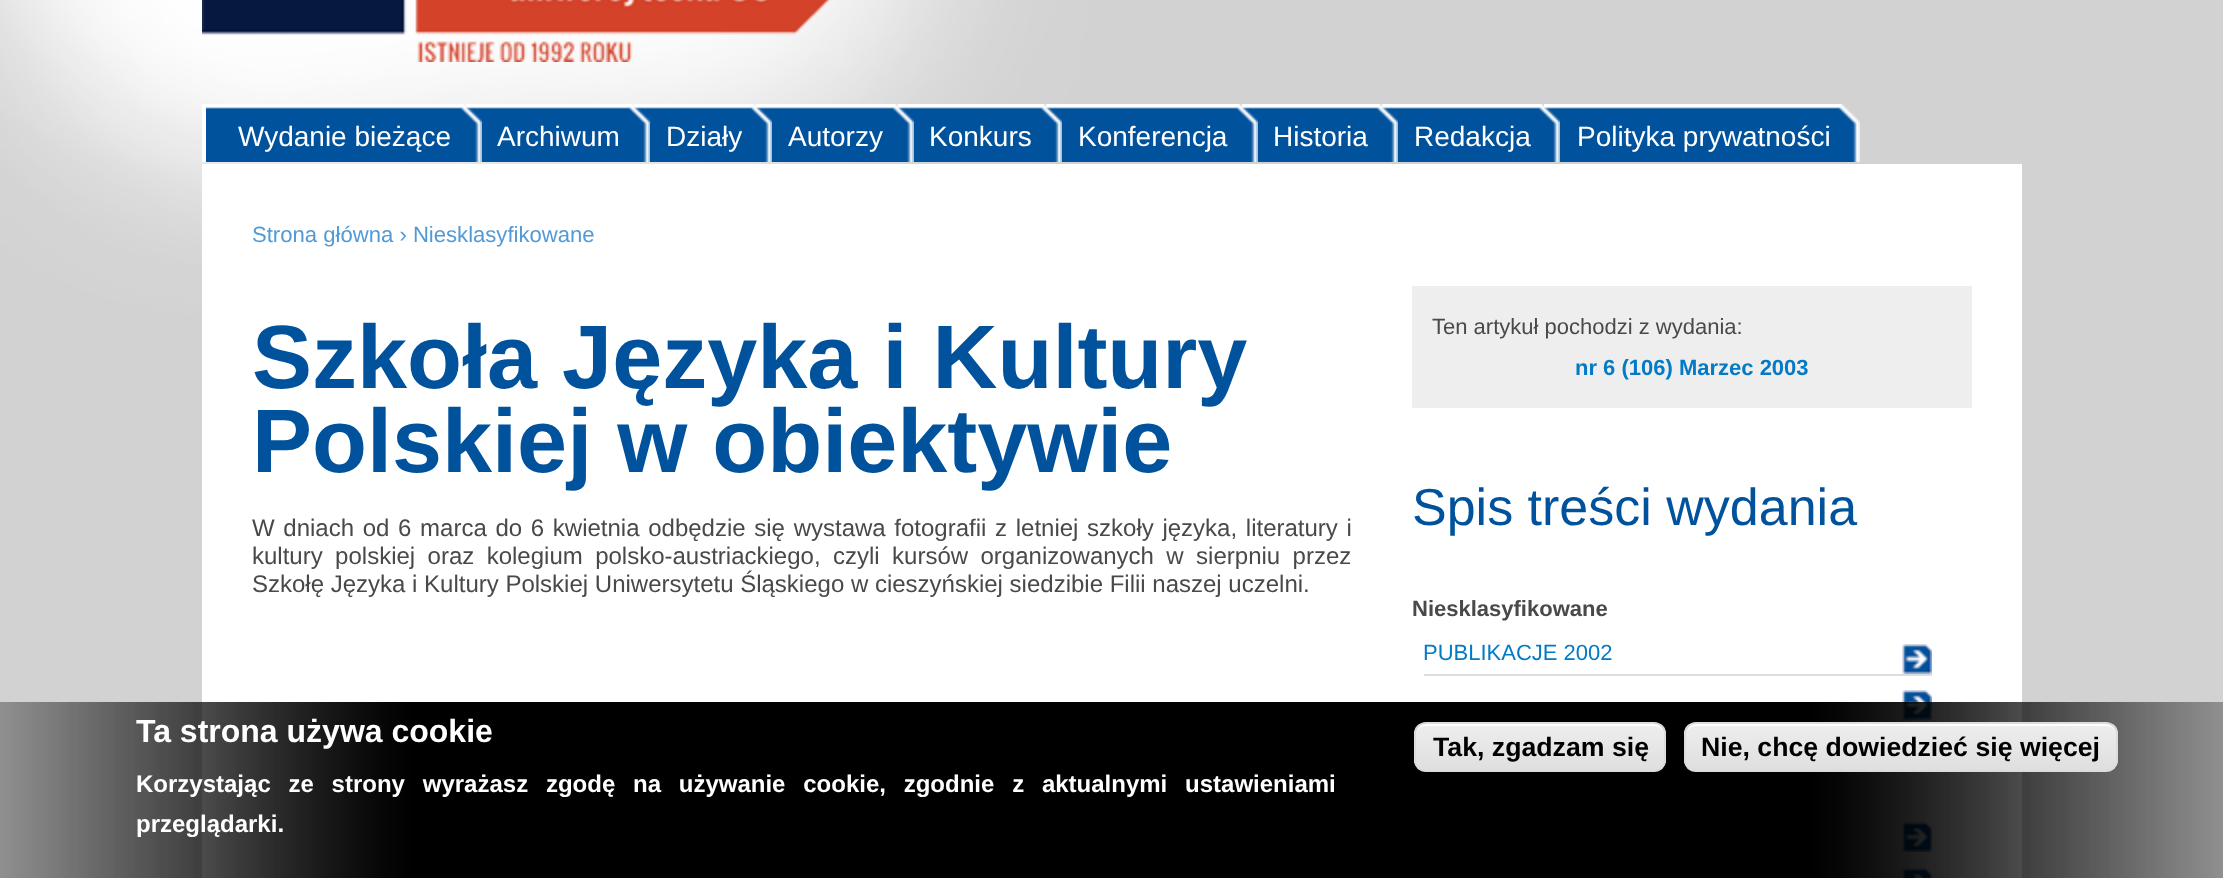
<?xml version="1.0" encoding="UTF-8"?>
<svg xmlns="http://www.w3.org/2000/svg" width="2223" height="878">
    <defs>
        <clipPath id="clip1"><rect x="1414" y="722" width="252" height="50" rx="12"/></clipPath>
        <linearGradient id="g1" gradientUnits="userSpaceOnUse" x1="1416" y1="724" x2="1416" y2="770"><stop offset="0.05" stop-color="#EDEDED"/><stop offset="1" stop-color="#DFDFDF"/></linearGradient>
        <clipPath id="clip2"><rect x="1684" y="722" width="434" height="50" rx="12"/></clipPath>
        <linearGradient id="g2" gradientUnits="userSpaceOnUse" x1="1686" y1="724" x2="1686" y2="770"><stop offset="0.05" stop-color="#EDEDED"/><stop offset="1" stop-color="#DFDFDF"/></linearGradient>
    </defs>
    <rect width="100%" height="100%" fill="#D2D2D2"/>
    <image x="0" y="0" width="1194" height="388" href="img_01.png"/>
    <image x="202" y="0" width="629" height="62" href="img_02.png"/>
    <image x="1544" y="104" width="316" height="58" href="img_11.png"/>
    <image x="1382" y="104" width="178" height="58" href="img_10.png"/>
    <image x="1242" y="104" width="156" height="58" href="img_09.png"/>
    <image x="1046" y="104" width="212" height="58" href="img_08.png"/>
    <image x="898" y="104" width="164" height="58" href="img_07.png"/>
    <image x="756" y="104" width="158" height="58" href="img_06.png"/>
    <image x="634" y="104" width="138" height="58" href="img_05.png"/>
    <image x="466" y="104" width="184" height="58" href="img_04.png"/>
    <image x="206" y="104" width="276" height="58" href="img_03.png"/>
    <rect x="202" y="104" width="4" height="58" fill="#FFFFFF"/>
    <text x="238" y="146" font-family="Liberation Sans" font-size="28" fill="#FFFFFF">Wydanie bieżące</text>
    <text x="497" y="146" font-family="Liberation Sans" font-size="28" fill="#FFFFFF">Archiwum</text>
    <text x="666" y="146" font-family="Liberation Sans" font-size="28" fill="#FFFFFF">Działy</text>
    <text x="788" y="146" font-family="Liberation Sans" font-size="28" fill="#FFFFFF">Autorzy</text>
    <text x="929" y="146" font-family="Liberation Sans" font-size="28" fill="#FFFFFF">Konkurs</text>
    <text x="1078" y="146" font-family="Liberation Sans" font-size="28" fill="#FFFFFF">Konferencja</text>
    <text x="1273" y="146" font-family="Liberation Sans" font-size="28" fill="#FFFFFF">Historia</text>
    <text x="1414" y="146" font-family="Liberation Sans" font-size="28" fill="#FFFFFF">Redakcja</text>
    <text x="1577" y="146" font-family="Liberation Sans" font-size="28" fill="#FFFFFF">Polityka prywatności</text>
    <rect x="202" y="164" width="1820" height="714" fill="#FFFFFF"/>
    <text x="252" y="242" font-family="Liberation Sans" font-size="22.1" fill="#529AD6">Strona główna › Niesklasyfikowane</text>
    <text font-family="Liberation Sans" font-size="90" font-weight="700" fill="#00529C">
        <tspan x="252" y="388">Szkoła Języka i Kultury</tspan>
        <tspan x="252" y="472">Polskiej w obiektywie</tspan>
    </text>
    <text font-family="Liberation Sans" font-size="24" fill="#494949">
        <tspan x="252" y="536" word-spacing="2">W dniach od 6 marca do 6 kwietnia odbędzie się wystawa fotografii z letniej szkoły języka, literatury i</tspan>
        <tspan x="252" y="564" word-spacing="5.75">kultury polskiej oraz kolegium polsko-austriackiego, czyli kursów organizowanych w sierpniu przez</tspan>
        <tspan x="252" y="592">Szkołę Języka i Kultury Polskiej Uniwersytetu Śląskiego w cieszyńskiej siedzibie Filii naszej uczelni.</tspan>
    </text>
    <rect x="1412" y="286" width="560" height="122" fill="#EEEEEE"/>
    <text x="1432" y="334" font-family="Liberation Sans" font-size="22" fill="#494949">Ten artykuł pochodzi z wydania:</text>
    <text x="1575" y="375" font-family="Liberation Sans" font-size="22" font-weight="700" fill="#027AC6">nr 6 (106) Marzec 2003</text>
    <text x="1412" y="525" font-family="Liberation Sans" font-size="52" fill="#00529C">Spis treści wydania</text>
    <text x="1412" y="616" font-family="Liberation Sans" font-size="22" font-weight="700" fill="#494949">Niesklasyfikowane</text>
    <image x="1902" y="644" width="30" height="30" href="img_12.png"/>
    <rect x="1424" y="674" width="508" height="2" fill="#DDDDDD"/>
    <text x="1423" y="660" font-family="Liberation Sans" font-size="22" fill="#027AC6">PUBLIKACJE 2002</text>
    <image x="1902" y="690" width="30" height="30" href="img_12.png"/>
    <image x="1902" y="822" width="30" height="30" href="img_12.png"/>
    <image x="1902" y="868" width="30" height="10" href="img_13.png"/>
    <image x="0" y="702" width="2223" height="176" href="img_14.png"/>
    <text x="136" y="742" font-family="Liberation Sans" font-size="32" font-weight="700" fill="#FFFFFF">Ta strona używa cookie</text>
    <text font-family="Liberation Sans" font-size="24" font-weight="700" fill="#FFFFFF">
        <tspan x="136" y="792" word-spacing="11.1">Korzystając ze strony wyrażasz zgodę na używanie cookie, zgodnie z aktualnymi ustawieniami</tspan>
        <tspan x="136" y="832">przeglądarki.</tspan>
    </text>
    <g clip-path="url(#clip1)">
        <rect x="1414" y="724" width="252" height="46" fill="url(#g1)"/>
    </g>
    <path d="M 1426 726 H 1654 C 1660 726 1664 730 1664 736 V 734 C 1664 728 1660 724 1654 724 H 1426 C 1420 724 1416 728 1416 734 V 736 C 1416 730 1420 726 1426 726 Z" fill="#FFFFFF"/>
    <rect x="1415" y="723" width="250" height="48" rx="11" fill="none" stroke="#DCDCDC" stroke-width="2"/>
    <text x="1433" y="756" font-family="Liberation Sans" font-size="26.7" font-weight="700" fill="#000000">Tak, zgadzam się</text>
    <g clip-path="url(#clip2)">
        <rect x="1684" y="724" width="434" height="46" fill="url(#g2)"/>
    </g>
    <path d="M 1696 726 H 2106 C 2112 726 2116 730 2116 736 C 2116 730 2113 724 2106 724 H 1694 C 1688 725 1686 731 1686 736 C 1686 730 1690 726 1696 726 Z" fill="#FFFFFF"/>
    <rect x="1685" y="723" width="432" height="48" rx="11" fill="none" stroke="#DCDCDC" stroke-width="2"/>
    <text x="1701" y="756" font-family="Liberation Sans" font-size="26.7" font-weight="700" fill="#000000">Nie, chcę dowiedzieć się więcej</text>
</svg>
